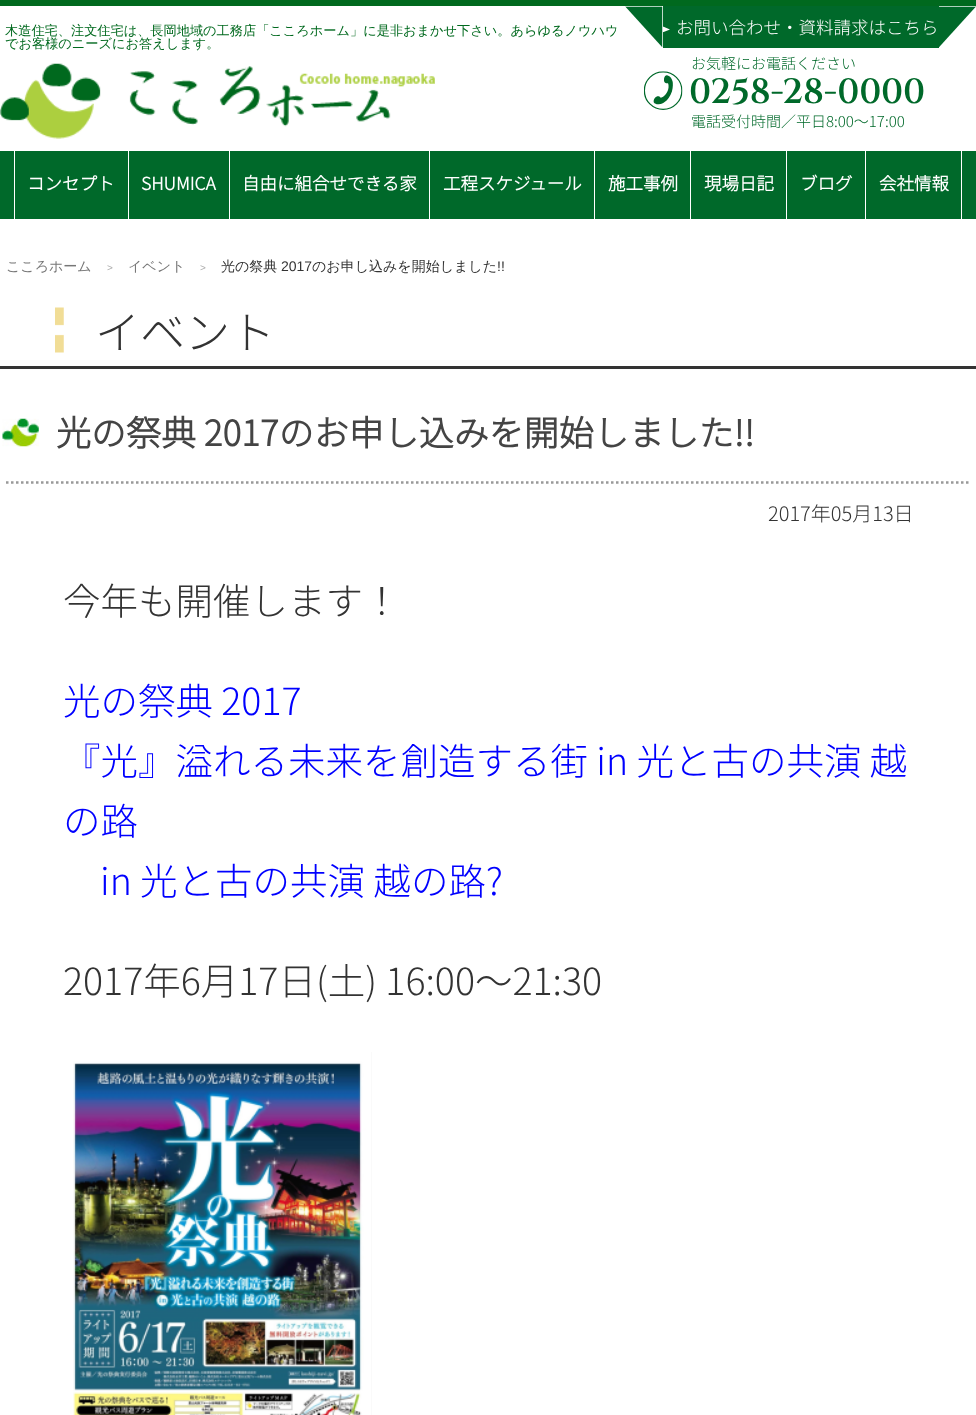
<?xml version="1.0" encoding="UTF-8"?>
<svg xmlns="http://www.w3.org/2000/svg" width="976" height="1415">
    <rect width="100%" height="100%" fill="#FFFFFF"/>
    <rect x="0" y="0" width="976" height="6" fill="#00691E"/>
    <text font-family="WenQuanYi Zen Hei" font-size="13.2" font-weight="500" fill="#00691E">
        <tspan x="5" y="35">木造住宅、注文住宅は、長岡地域の工務店「こころホーム」に是非おまかせ下さい。あらゆるノウハウ</tspan>
        <tspan x="5" y="48">でお客様のニーズにお答えします。</tspan>
    </text>
    <image x="0" y="63" width="435" height="76" href="img_01.png"/>
    <image x="625" y="6" width="38" height="42" href="img_02.png"/>
    <rect x="663" y="6" width="276" height="42" fill="#00692A"/>
    <image x="663" y="26" width="7" height="7" href="img_03.png"/>
    <text x="676" y="34" font-family="Noto Sans JP" font-size="17.5" font-weight="100" fill="#FFFFFF">お問い合わせ・資料請求はこちら</text>
    <image x="939" y="6" width="37" height="41" href="img_04.png"/>
    <text x="691" y="69" font-family="Noto Sans JP" font-size="15" font-weight="100" fill="#00692A">お気軽にお電話ください</text>
    <image x="644" y="71" width="39" height="39" href="img_05.png"/>
    <text x="689" y="103" font-family="Cinzel" font-size="35" font-weight="600" fill="#00692A">0258-28-0000</text>
    <text x="691" y="127" font-family="Noto Sans JP" font-size="15" font-weight="100" fill="#00692A">電話受付時間／平日8:00～17:00</text>
    <rect x="0" y="151" width="976" height="68" fill="#00692A"/>
    <rect x="14" y="151" width="1" height="68" fill="#FFFFFF"/>
    <text x="27" y="190" font-family="Noto Sans JP" font-size="17.5" font-weight="700" fill="#FFFFFF">コンセプト</text>
    <rect x="128" y="151" width="1" height="68" fill="#FFFFFF"/>
    <text x="141" y="190" font-family="Noto Sans JP" font-size="17.5" font-weight="700" fill="#FFFFFF">SHUMICA</text>
    <rect x="229" y="151" width="1" height="68" fill="#FFFFFF"/>
    <text x="242" y="190" font-family="Noto Sans JP" font-size="17.5" font-weight="700" fill="#FFFFFF">自由に組合せできる家</text>
    <rect x="429" y="151" width="1" height="68" fill="#FFFFFF"/>
    <text x="443" y="190" font-family="Noto Sans JP" font-size="17.5" font-weight="700" fill="#FFFFFF">工程スケジュール</text>
    <rect x="594" y="151" width="1" height="68" fill="#FFFFFF"/>
    <text x="608" y="190" font-family="Noto Sans JP" font-size="17.5" font-weight="700" fill="#FFFFFF">施工事例</text>
    <rect x="690" y="151" width="1" height="68" fill="#FFFFFF"/>
    <text x="704" y="190" font-family="Noto Sans JP" font-size="17.5" font-weight="700" fill="#FFFFFF">現場日記</text>
    <rect x="786" y="151" width="1" height="68" fill="#FFFFFF"/>
    <text x="800" y="190" font-family="Noto Sans JP" font-size="17.5" font-weight="700" fill="#FFFFFF">ブログ</text>
    <rect x="961" y="151" width="1" height="68" fill="#FFFFFF"/>
    <rect x="865" y="151" width="1" height="68" fill="#FFFFFF"/>
    <text x="879" y="190" font-family="Noto Sans JP" font-size="17.5" font-weight="700" fill="#FFFFFF">会社情報</text>
    <text x="6" y="271" font-family="WenQuanYi Zen Hei" font-size="14" font-weight="500" fill="#777777">こころホーム</text>
    <text x="107" y="271" font-family="Liberation Sans" font-size="10" fill="#AAAAAA">&gt;</text>
    <text x="128" y="271" font-family="WenQuanYi Zen Hei" font-size="14" font-weight="500" fill="#777777">イベント</text>
    <text x="200" y="271" font-family="Liberation Sans" font-size="10" fill="#AAAAAA">&gt;</text>
    <text x="221" y="271" font-family="WenQuanYi Zen Hei" font-size="14" font-weight="500" fill="#333333">光の祭典</text>
    <text x="281" y="271" font-family="Liberation Sans" font-size="14" fill="#333333">2017</text>
    <text x="312" y="271" font-family="WenQuanYi Zen Hei" font-size="14" font-weight="500" fill="#333333">のお申し込みを開始しました</text>
    <text x="497" y="271" font-family="Liberation Sans" font-size="14" fill="#333333">!!</text>
    <rect x="0" y="366" width="976" height="3" fill="#333333"/>
    <image x="55" y="307" width="9" height="46" href="img_06.png"/>
    <text x="95" y="349" font-family="Noto Sans JP" font-size="45" font-weight="100" fill="#333333">イベント</text>
    <image x="2" y="418" width="37" height="29" href="img_07.png"/>
    <text x="56" y="446" font-family="Noto Sans JP" font-size="35" font-weight="700" fill="#444444">光の祭典 2017のお申し込みを開始しました!!</text>
    <path d="M 6 482.5 H 970" fill="none" stroke="#999999" stroke-width="2.5" stroke-dasharray="2.5 2.5"/>
    <text x="768" y="521" font-family="Noto Sans JP" font-size="20" font-weight="100" fill="#333333">2017年05月13日</text>
    <text x="63" y="615" font-family="Noto Sans JP" font-size="37.5" font-weight="100" fill="#333333">今年も開催します！</text>
    <text font-family="Noto Sans JP" font-size="37.5" font-weight="100" fill="#0000FF">
        <tspan x="63" y="715">光の祭典 2017</tspan>
        <tspan x="63" y="775">『光』溢れる未来を創造する街 in 光と古の共演 越</tspan>
        <tspan x="63" y="835">の路</tspan>
    </text>
    <text x="100" y="895" font-family="Noto Sans JP" font-size="37.5" font-weight="100" fill="#0000FF">in 光と古の共演 越の路?</text>
    <text x="63" y="995" font-family="Noto Sans JP" font-size="37.5" font-weight="100" fill="#333333">2017年6月17日(土) 16:00～21:30</text>
    <image x="73" y="1052" width="299" height="363" href="img_08.png"/>
</svg>
